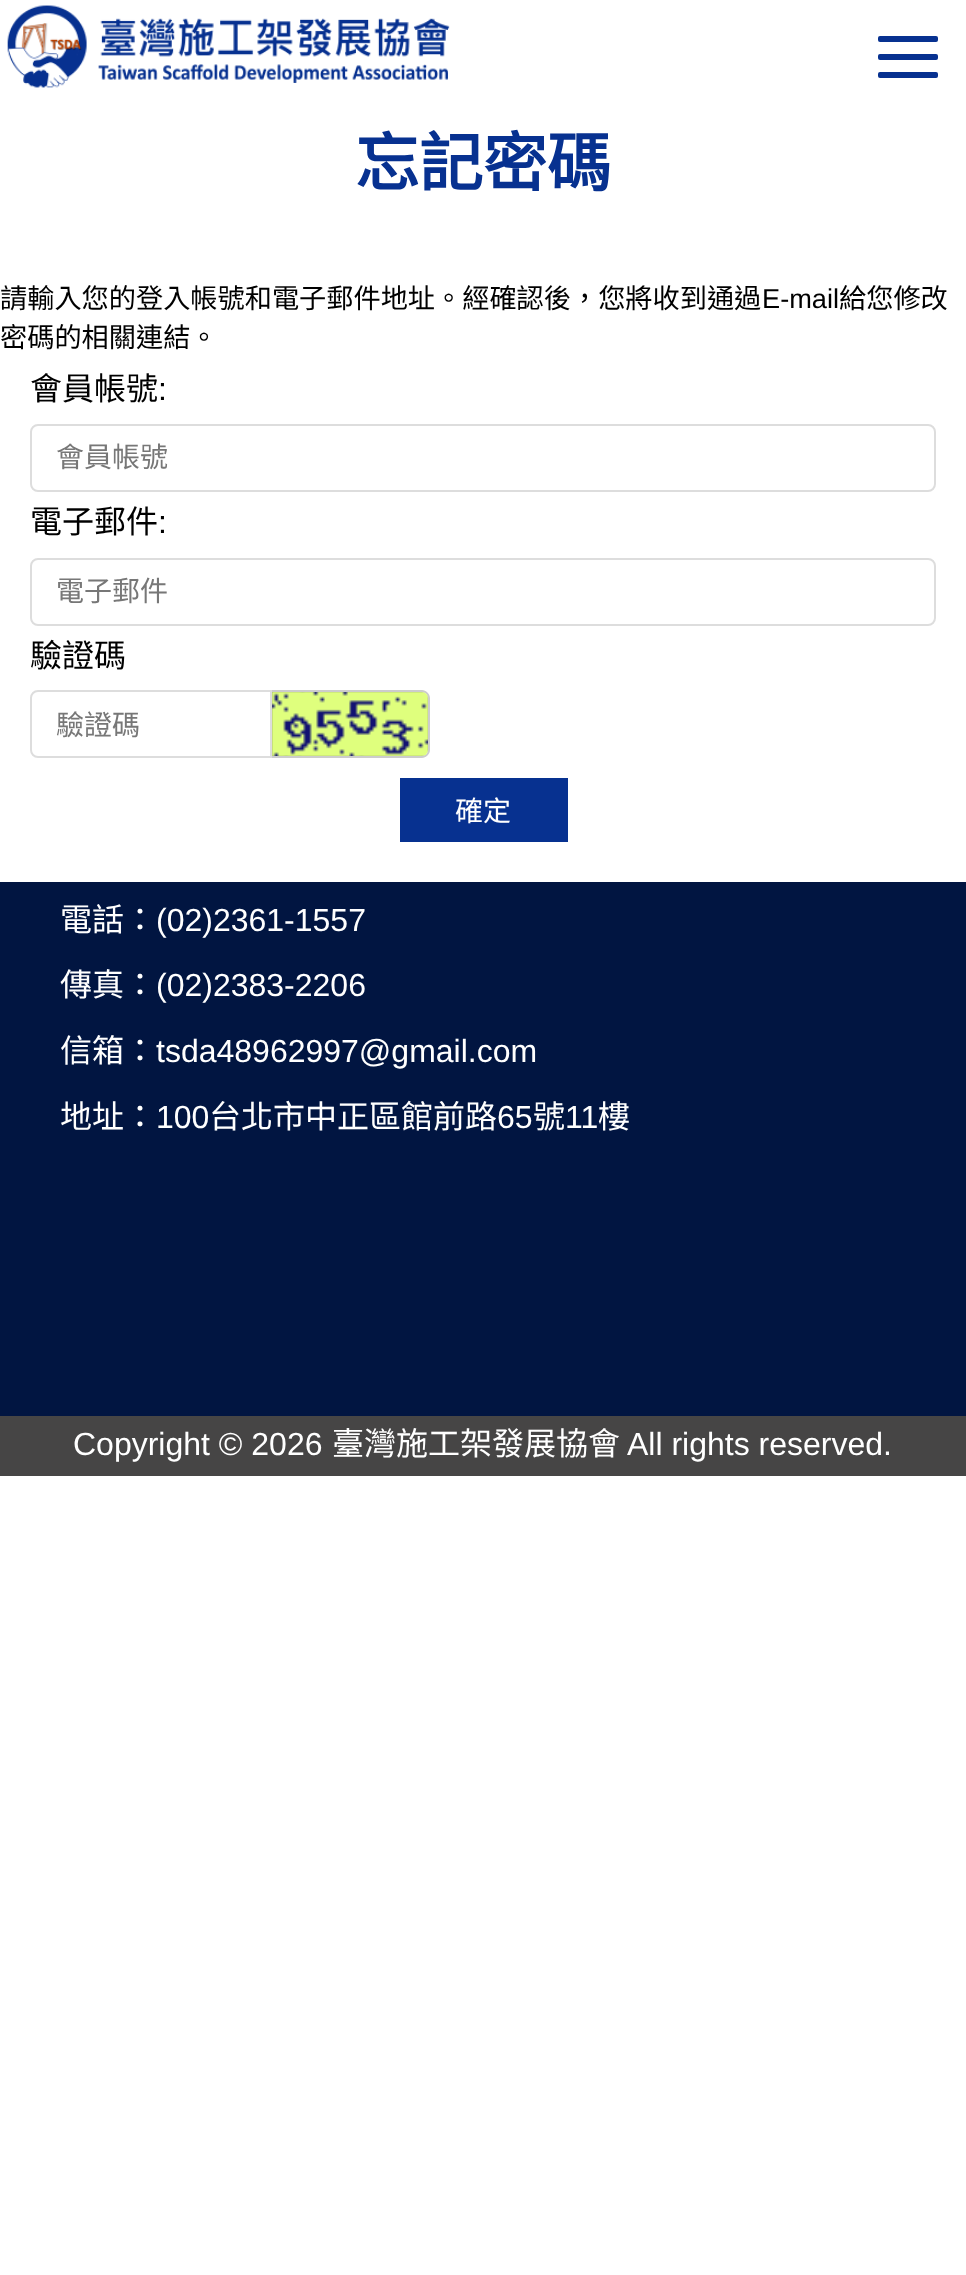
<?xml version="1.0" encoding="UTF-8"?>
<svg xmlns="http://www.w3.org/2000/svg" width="966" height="2275">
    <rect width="100%" height="100%" fill="#FFFFFF"/>
    <image x="7" y="5" width="443" height="83" href="img_01.png"/>
    <rect x="878" y="36" width="60" height="6" rx="2" fill="#073190"/>
    <rect x="878" y="54" width="60" height="6" rx="2" fill="#073190"/>
    <rect x="878" y="72" width="60" height="6" rx="2" fill="#073190"/>
    <text x="355" y="186" font-family="Noto Sans CJK TC" font-size="64" font-weight="700" fill="#073190">忘記密碼</text>
    <text x="0" y="308" font-family="Noto Sans CJK TC" font-size="27.2" fill="#000000">請輸入您的登入帳號和電子郵件地址。經確認後，您將收到通過</text>
    <text x="762" y="308" font-family="Liberation Sans" font-size="27.2" fill="#000000">E-mail</text>
    <text x="839" y="308" font-family="Noto Sans CJK TC" font-size="27.2" fill="#000000">給您修改</text>
    <text x="0" y="347" font-family="Noto Sans CJK TC" font-size="27.2" fill="#000000">密碼的相關連結。</text>
    <text x="30" y="400" font-family="Noto Sans CJK TC" font-size="32" fill="#000000">會員帳號</text>
    <text x="158" y="400" font-family="Liberation Sans" font-size="32" fill="#000000">:</text>
    <rect x="31" y="425" width="904" height="66" rx="7" fill="none" stroke="#DDDDDD" stroke-width="2"/>
    <text x="56" y="467" font-family="Noto Sans CJK TC" font-size="28" fill="#777777">會員帳號</text>
    <text x="30" y="533" font-family="Noto Sans CJK TC" font-size="32" fill="#000000">電子郵件</text>
    <text x="158" y="533" font-family="Liberation Sans" font-size="32" fill="#000000">:</text>
    <rect x="31" y="559" width="904" height="66" rx="7" fill="none" stroke="#DDDDDD" stroke-width="2"/>
    <text x="56" y="601" font-family="Noto Sans CJK TC" font-size="28" fill="#777777">電子郵件</text>
    <text x="30" y="667" font-family="Noto Sans CJK TC" font-size="32" fill="#000000">驗證碼</text>
    <path d="M 38 691 H 271 V 757 H 38 C 34 757 31 754 31 750 V 698 C 31 694 34 691 38 691 Z" fill="none" stroke="#DDDDDD" stroke-width="2"/>
    <text x="56" y="735" font-family="Noto Sans CJK TC" font-size="28" fill="#777777">驗證碼</text>
    <path d="M 272 690 H 422 C 426 690 430 694 430 698 V 750 C 430 754 426 758 422 758 H 272 Z M 272 692 H 422 C 425 692 428 695 428 698 V 750 C 428 753 425 756 422 756 H 272 Z" fill="#CCCCCC" fill-rule="evenodd"/>
    <image x="272" y="692" width="156" height="64" href="img_02.png"/>
    <rect x="400" y="778" width="168" height="64" fill="#073190"/>
    <text x="455" y="821" font-family="Noto Sans CJK TC" font-size="28" fill="#FFFFFF">確定</text>
    <rect x="0" y="882" width="966" height="534" fill="#011541"/>
    <text x="60" y="931" font-family="Noto Sans CJK TC" font-size="32" fill="#FFFFFF">電話：</text>
    <text x="156" y="931" font-family="Liberation Sans" font-size="32" fill="#FFFFFF">(02)2361-1557</text>
    <text x="60" y="996" font-family="Noto Sans CJK TC" font-size="32" fill="#FFFFFF">傳真：</text>
    <text x="156" y="996" font-family="Liberation Sans" font-size="32" fill="#FFFFFF">(02)2383-2206</text>
    <text x="60" y="1062" font-family="Noto Sans CJK TC" font-size="32" fill="#FFFFFF">信箱：</text>
    <text x="156" y="1062" font-family="Liberation Sans" font-size="32" fill="#FFFFFF">tsda48962997@gmail.com</text>
    <text x="60" y="1128" font-family="Noto Sans CJK TC" font-size="32" fill="#FFFFFF">地址：</text>
    <text x="156" y="1128" font-family="Liberation Sans" font-size="32" fill="#FFFFFF">100</text>
    <text x="209" y="1128" font-family="Noto Sans CJK TC" font-size="32" fill="#FFFFFF">台北市中正區館前路</text>
    <text x="497" y="1128" font-family="Liberation Sans" font-size="32" fill="#FFFFFF">65</text>
    <text x="533" y="1128" font-family="Noto Sans CJK TC" font-size="32" fill="#FFFFFF">號</text>
    <text x="565" y="1128" font-family="Liberation Sans" font-size="32" fill="#FFFFFF">11</text>
    <text x="598" y="1128" font-family="Noto Sans CJK TC" font-size="32" fill="#FFFFFF">樓</text>
    <rect x="0" y="1416" width="966" height="60" fill="#464545"/>
    <text x="73" y="1455" font-family="Liberation Sans" font-size="32" fill="#FFFFFF">Copyright © 2026</text>
    <text x="332" y="1455" font-family="Noto Sans CJK TC" font-size="32" fill="#FFFFFF">臺灣施工架發展協會</text>
    <text x="627" y="1455" font-family="Liberation Sans" font-size="32" fill="#FFFFFF">All rights reserved.</text>
</svg>
